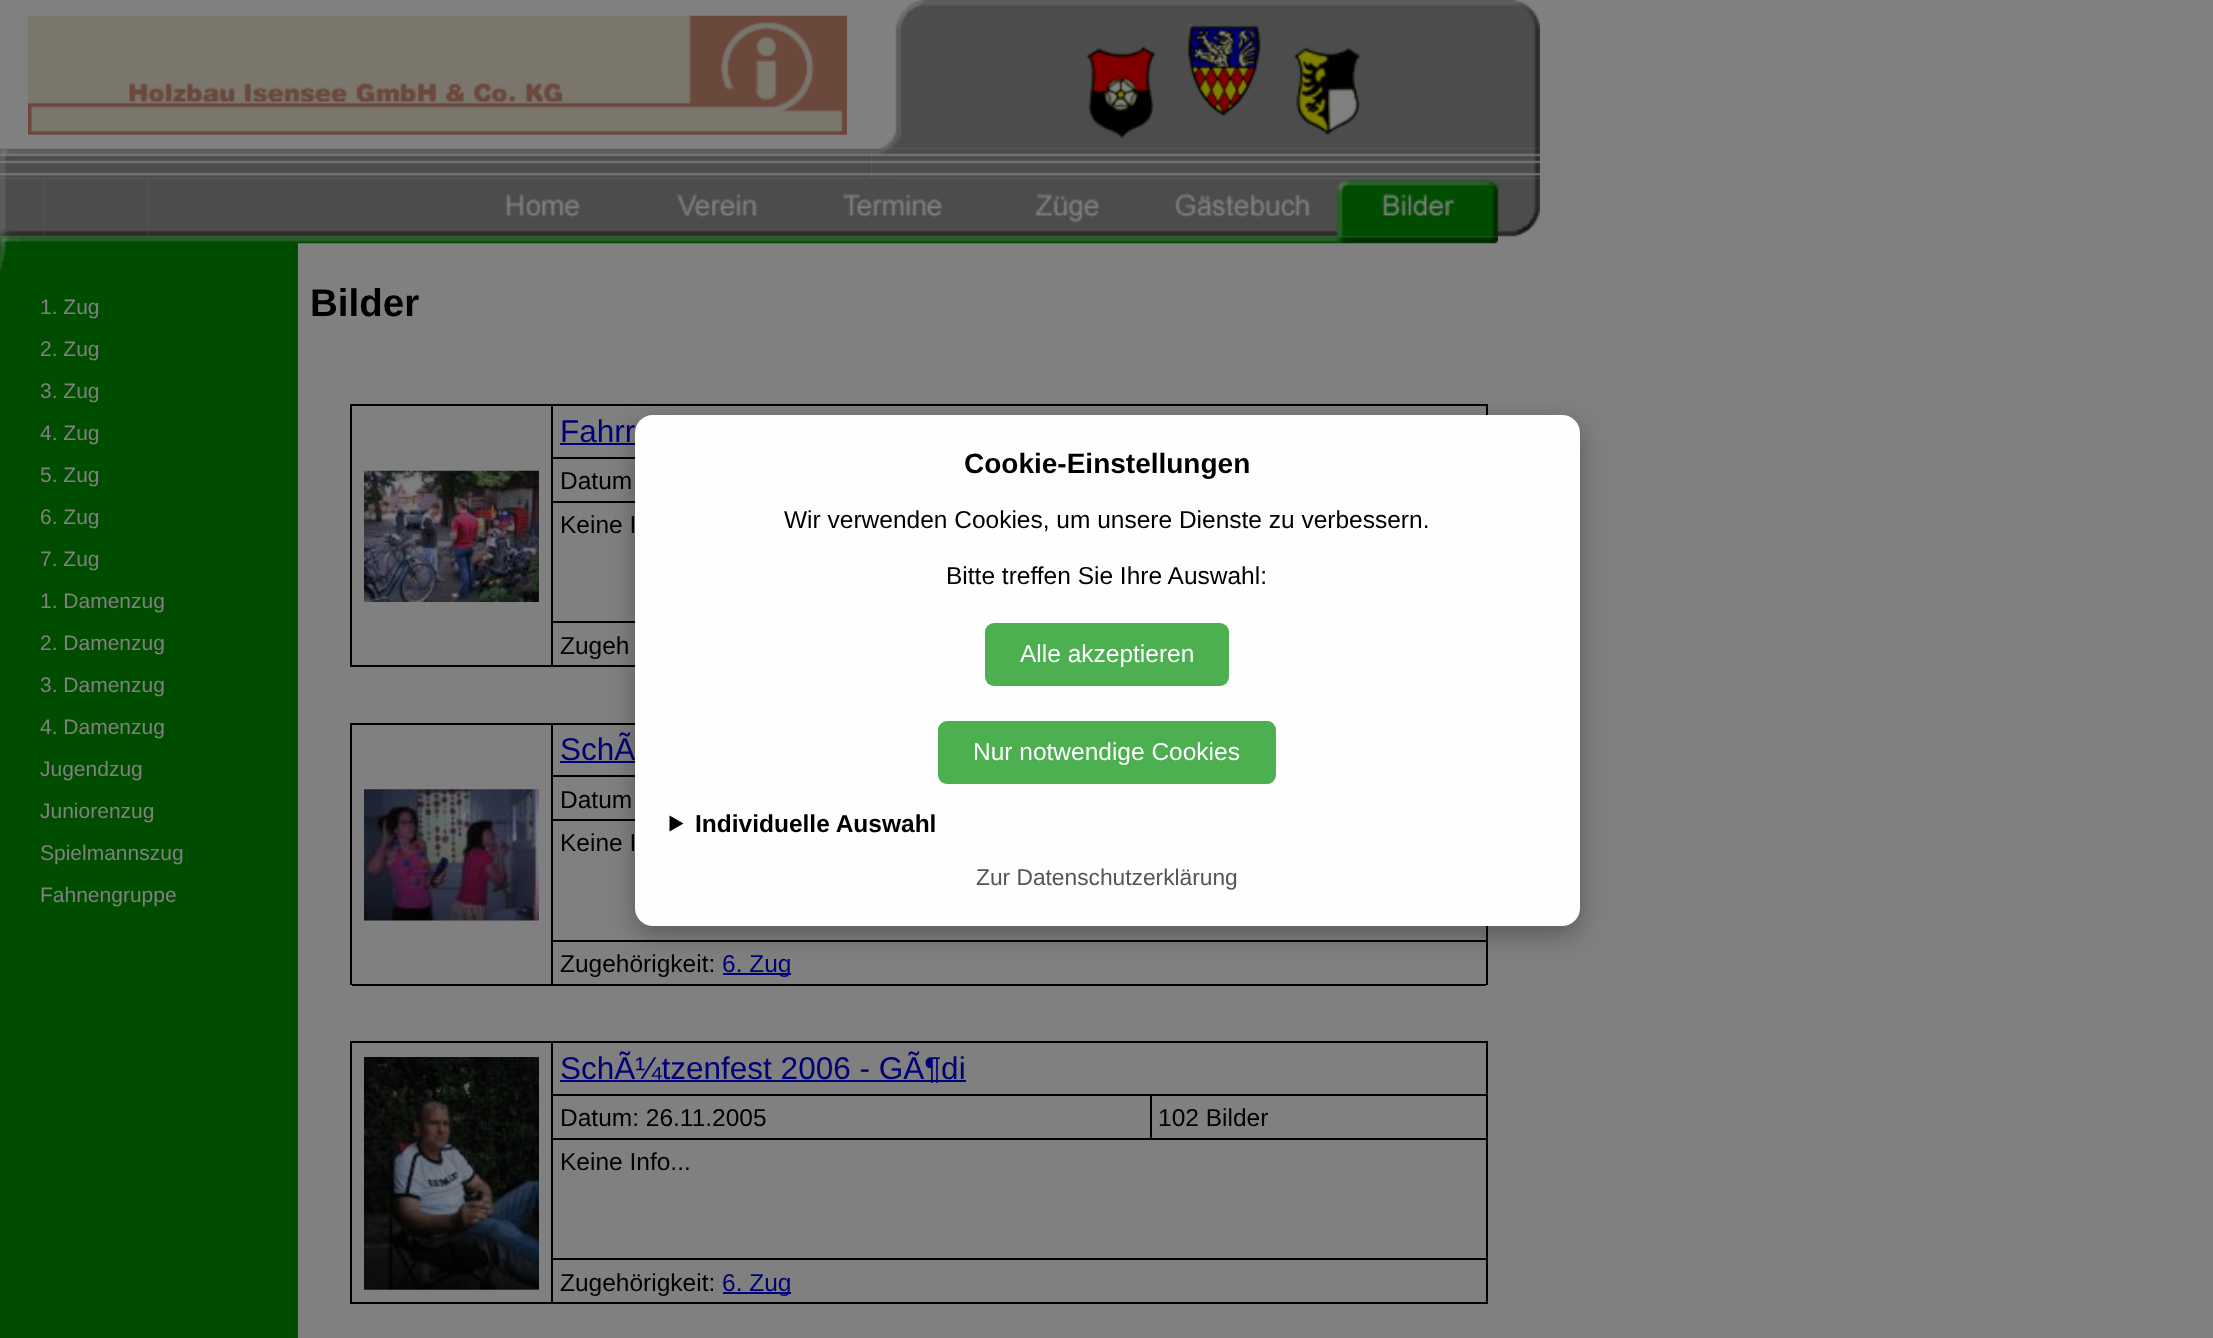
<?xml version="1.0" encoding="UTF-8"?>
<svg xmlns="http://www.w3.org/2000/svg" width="2213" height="1338">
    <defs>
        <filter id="blur1" x="-50%" y="-200%" width="200%" height="500%"><feGaussianBlur stdDeviation="13"/></filter>
    </defs>
    <rect width="100%" height="100%" fill="#808080"/>
    <image x="28" y="15" width="819" height="120" href="img_01.png"/>
    <image x="880" y="0" width="660" height="149" href="img_02.png"/>
    <image x="0" y="148" width="35" height="31" href="img_03.png"/>
    <image x="35" y="148" width="837" height="31" href="img_04.png"/>
    <image x="871" y="148" width="18" height="31" href="img_05.png"/>
    <image x="889" y="148" width="616" height="31" href="img_06.png"/>
    <image x="1505" y="148" width="35" height="31" href="img_07.png"/>
    <image x="0" y="178" width="35" height="59" href="img_08.png"/>
    <image x="35" y="178" width="9" height="59" href="img_09.png"/>
    <image x="43" y="178" width="106" height="59" href="img_10.png"/>
    <image x="148" y="178" width="307" height="59" href="img_11.png"/>
    <image x="455" y="178" width="175" height="59" href="img_12.png"/>
    <image x="630" y="178" width="175" height="59" href="img_13.png"/>
    <image x="805" y="178" width="175" height="59" href="img_14.png"/>
    <image x="980" y="178" width="175" height="59" href="img_15.png"/>
    <image x="1155" y="178" width="175" height="59" href="img_16.png"/>
    <image x="1330" y="178" width="175" height="59" href="img_17.png"/>
    <image x="1505" y="178" width="35" height="59" href="img_18.png"/>
    <rect x="0" y="243" width="298" height="1095" fill="#004D00"/>
    <image x="0" y="236" width="18" height="8" href="img_19.png"/>
    <image x="17" y="236" width="1306" height="8" href="img_20.png"/>
    <image x="1323" y="236" width="175" height="8" href="img_21.png"/>
    <image x="0" y="243" width="6" height="27" href="img_22.png"/>
    <text x="40" y="314" font-family="Liberation Sans" font-size="21" fill="#808080">1. Zug</text>
    <text x="40" y="356" font-family="Liberation Sans" font-size="21" fill="#808080">2. Zug</text>
    <text x="40" y="398" font-family="Liberation Sans" font-size="21" fill="#808080">3. Zug</text>
    <text x="40" y="440" font-family="Liberation Sans" font-size="21" fill="#808080">4. Zug</text>
    <text x="40" y="482" font-family="Liberation Sans" font-size="21" fill="#808080">5. Zug</text>
    <text x="40" y="524" font-family="Liberation Sans" font-size="21" fill="#808080">6. Zug</text>
    <text x="40" y="566" font-family="Liberation Sans" font-size="21" fill="#808080">7. Zug</text>
    <text x="40" y="608" font-family="Liberation Sans" font-size="21" fill="#808080">1. Damenzug</text>
    <text x="40" y="650" font-family="Liberation Sans" font-size="21" fill="#808080">2. Damenzug</text>
    <text x="40" y="692" font-family="Liberation Sans" font-size="21" fill="#808080">3. Damenzug</text>
    <text x="40" y="734" font-family="Liberation Sans" font-size="21" fill="#808080">4. Damenzug</text>
    <text x="40" y="776" font-family="Liberation Sans" font-size="21" fill="#808080">Jugendzug</text>
    <text x="40" y="818" font-family="Liberation Sans" font-size="21" fill="#808080">Juniorenzug</text>
    <text x="40" y="860" font-family="Liberation Sans" font-size="21" fill="#808080">Spielmannszug</text>
    <text x="40" y="902" font-family="Liberation Sans" font-size="21" fill="#808080">Fahnengruppe</text>
    <text x="310" y="316" font-family="Liberation Sans" font-size="38.5" font-weight="700" fill="#000000">Bilder</text>
    <rect x="350" y="404" width="1138" height="2" fill="#000000"/>
    <rect x="1486" y="404" width="2" height="11" fill="#000000"/>
    <rect x="350" y="404" width="2" height="263" fill="#000000"/>
    <rect x="551" y="406" width="2" height="261" fill="#000000"/>
    <rect x="352" y="665" width="283" height="2" fill="#000000"/>
    <image x="364" y="470" width="175" height="132" href="img_23.png"/>
    <rect x="553" y="457" width="82" height="2" fill="#000000"/>
    <text x="560" y="442" font-family="Liberation Sans" font-size="31.5" fill="#000077">Fahrr</text>
    <rect x="560" y="443" width="75" height="2" fill="#000077"/>
    <rect x="553" y="501" width="82" height="2" fill="#000000"/>
    <text x="560" y="489" font-family="Liberation Sans" font-size="24.5" fill="#000000">Datum</text>
    <rect x="553" y="621" width="82" height="2" fill="#000000"/>
    <text x="560" y="533" font-family="Liberation Sans" font-size="24.5" fill="#000000">Keine I</text>
    <text x="560" y="654" font-family="Liberation Sans" font-size="24.5" fill="#000000">Zugeh</text>
    <rect x="350" y="723" width="285" height="2" fill="#000000"/>
    <rect x="1486" y="926" width="2" height="59" fill="#000000"/>
    <rect x="350" y="723" width="2" height="262" fill="#000000"/>
    <rect x="551" y="725" width="2" height="260" fill="#000000"/>
    <rect x="352" y="984" width="1134" height="2" fill="#000000"/>
    <image x="364" y="789" width="175" height="132" href="img_24.png"/>
    <rect x="553" y="775" width="82" height="2" fill="#000000"/>
    <text x="560" y="760" font-family="Liberation Sans" font-size="31.5" fill="#000077">SchÃ</text>
    <rect x="560" y="761" width="75" height="2" fill="#000077"/>
    <rect x="553" y="819" width="82" height="2" fill="#000000"/>
    <text x="560" y="808" font-family="Liberation Sans" font-size="24.5" fill="#000000">Datum</text>
    <rect x="553" y="940" width="933" height="2" fill="#000000"/>
    <text x="560" y="851" font-family="Liberation Sans" font-size="24.5" fill="#000000">Keine I</text>
    <text x="560" y="972" font-family="Liberation Sans" font-size="24.5" fill="#000000">Zugehörigkeit:</text>
    <rect x="723" y="973" width="68" height="2" fill="#000077"/>
    <text x="722" y="972" font-family="Liberation Sans" font-size="24.5" fill="#000077">6. Zug</text>
    <rect x="350" y="1041" width="1138" height="2" fill="#000000"/>
    <rect x="1486" y="1041" width="2" height="263" fill="#000000"/>
    <rect x="350" y="1041" width="2" height="263" fill="#000000"/>
    <rect x="551" y="1043" width="2" height="261" fill="#000000"/>
    <rect x="352" y="1302" width="1134" height="2" fill="#000000"/>
    <image x="364" y="1057" width="175" height="233" href="img_25.png"/>
    <rect x="553" y="1094" width="933" height="2" fill="#000000"/>
    <rect x="560" y="1080" width="406" height="2" fill="#000077"/>
    <text x="560" y="1079" font-family="Liberation Sans" font-size="31.5" fill="#000077">SchÃ¼tzenfest 2006 - GÃ¶di</text>
    <rect x="1150" y="1096" width="2" height="43" fill="#000000"/>
    <rect x="553" y="1138" width="933" height="2" fill="#000000"/>
    <text x="560" y="1126" font-family="Liberation Sans" font-size="24.5" fill="#000000">Datum: 26.11.2005</text>
    <text x="1158" y="1126" font-family="Liberation Sans" font-size="24.5" fill="#000000">102 Bilder</text>
    <rect x="553" y="1258" width="933" height="2" fill="#000000"/>
    <text x="560" y="1170" font-family="Liberation Sans" font-size="24.5" fill="#000000">Keine Info...</text>
    <text x="560" y="1291" font-family="Liberation Sans" font-size="24.5" fill="#000000">Zugehörigkeit:</text>
    <rect x="723" y="1292" width="68" height="2" fill="#000077"/>
    <text x="722" y="1291" font-family="Liberation Sans" font-size="24.5" fill="#000077">6. Zug</text>
    <rect x="635" y="424" width="945" height="511" rx="18" fill="#000000" fill-opacity="0.3" filter="url(#blur1)"/>
    <rect x="635" y="415" width="945" height="511" rx="18" fill="#FEFEFE"/>
    <text x="964" y="473" font-family="Liberation Sans" font-size="28" font-weight="700" fill="#000000">Cookie-Einstellungen</text>
    <text x="784" y="528" font-family="Liberation Sans" font-size="24.5" fill="#000000">Wir verwenden Cookies, um unsere Dienste zu verbessern.</text>
    <text x="946" y="584" font-family="Liberation Sans" font-size="24.5" fill="#000000">Bitte treffen Sie Ihre Auswahl:</text>
    <rect x="985" y="623" width="244" height="63" rx="9" fill="#4CAF50"/>
    <text x="1020" y="662" font-family="Liberation Sans" font-size="24.5" fill="#FFFFFF">Alle akzeptieren</text>
    <rect x="938" y="721" width="338" height="63" rx="9" fill="#4CAF50"/>
    <text x="973" y="760" font-family="Liberation Sans" font-size="24.5" fill="#FFFFFF">Nur notwendige Cookies</text>
    <path d="M 669.5 815.5 L 683.5 823.5 L 669.5 831.5 Z" fill="#000000"/>
    <text x="695" y="832" font-family="Liberation Sans" font-size="24.5" font-weight="700" fill="#000000">Individuelle Auswahl</text>
    <text x="976" y="885" font-family="Liberation Sans" font-size="22.75" fill="#555555">Zur Datenschutzerklärung</text>
</svg>
